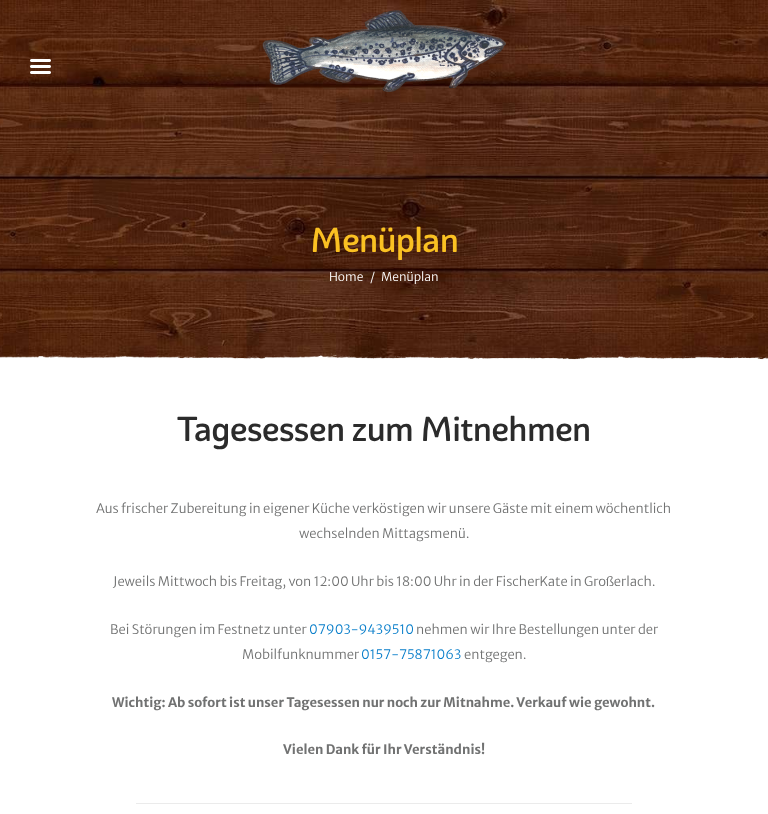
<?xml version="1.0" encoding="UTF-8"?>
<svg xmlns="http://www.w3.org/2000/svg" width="768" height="814">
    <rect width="100%" height="100%" fill="#FFFFFF"/>
    <image x="0" y="0" width="768" height="360" href="img_03.png"/>
    <image x="30" y="59" width="21" height="15" href="img_01.png"/>
    <image x="262" y="10" width="244" height="82" href="img_02.png"/>
    <text x="310" y="252" font-family="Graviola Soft" font-size="33.75" font-weight="500" letter-spacing="-0.7" fill="#FAC122">Menüplan</text>
    <text x="329" y="281" font-family="Merriweather Sans" font-size="12" font-weight="300" fill="#FFFFFF">Home</text>
    <text x="370" y="281" font-family="Merriweather Sans" font-size="12" font-weight="300" fill="#FFFFFF">/</text>
    <text x="381" y="281" font-family="Merriweather Sans" font-size="12" font-weight="300" fill="#FFFFFF">Menüplan</text>
    <image x="0" y="352" width="768" height="12" href="img_04.png"/>
    <text x="177" y="441" font-family="Graviola Soft" font-size="33.75" font-weight="500" letter-spacing="-0.7" fill="#2B2B2B">Tagesessen zum Mitnehmen</text>
    <text x="96" y="513" font-family="Merriweather Sans" font-size="13" font-weight="300" fill="#717272">Aus frischer Zubereitung in eigener Küche verköstigen wir unsere Gäste mit einem wöchentlich</text>
    <text x="299" y="538" font-family="Merriweather Sans" font-size="13" font-weight="300" fill="#717272">wechselnden Mittagsmenü.</text>
    <text x="113" y="586" font-family="Merriweather Sans" font-size="13" font-weight="300" fill="#717272">Jeweils Mittwoch bis Freitag, von 12:00 Uhr bis 18:00 Uhr in der FischerKate in Großerlach.</text>
    <text x="110" y="634" font-family="Merriweather Sans" font-size="13" font-weight="300" fill="#717272">Bei Störungen im Festnetz unter</text>
    <text x="309" y="634" font-family="Merriweather Sans" font-size="13" font-weight="300" fill="#087ECA">07903-9439510</text>
    <text x="416" y="634" font-family="Merriweather Sans" font-size="13" font-weight="300" fill="#717272">nehmen wir Ihre Bestellungen unter der</text>
    <text x="242" y="659" font-family="Merriweather Sans" font-size="13" font-weight="300" fill="#717272">Mobilfunknummer</text>
    <text x="361" y="659" font-family="Merriweather Sans" font-size="13" font-weight="300" fill="#087ECA">0157-75871063</text>
    <text x="464" y="659" font-family="Merriweather Sans" font-size="13" font-weight="300" fill="#717272">entgegen.</text>
    <text x="112" y="707" font-family="Merriweather Sans" font-size="13" font-weight="700" fill="#717272">Wichtig: Ab sofort ist unser Tagesessen nur noch zur Mitnahme. Verkauf wie gewohnt.</text>
    <text x="283" y="754" font-family="Merriweather Sans" font-size="13" font-weight="700" fill="#717272">Vielen Dank für Ihr Verständnis!</text>
    <rect x="136" y="803" width="496" height="1" fill="#EBEBEB"/>
</svg>
